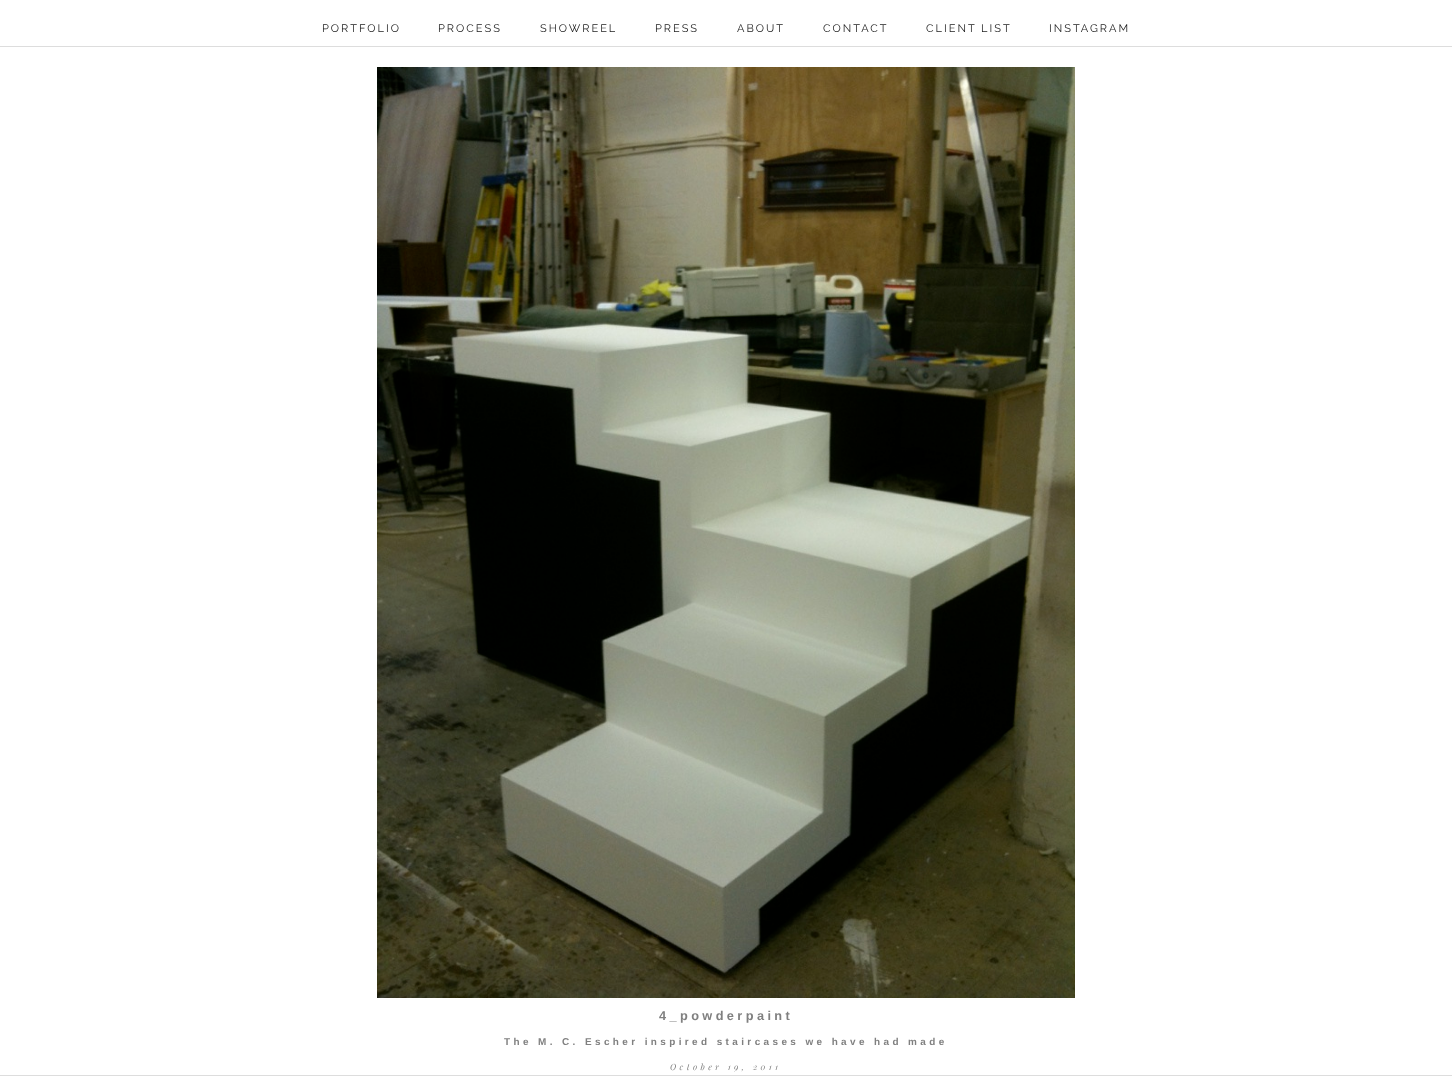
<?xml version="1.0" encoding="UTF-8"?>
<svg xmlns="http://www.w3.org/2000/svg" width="1452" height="1077">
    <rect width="100%" height="100%" fill="#FFFFFF"/>
    <rect x="0" y="46" width="1452" height="1" fill="#DDDDDD"/>
    <text x="322" y="32" font-family="Raleway" font-size="11" letter-spacing="2" fill="#1D1D1D">PORTFOLIO</text>
    <text x="438" y="32" font-family="Raleway" font-size="11" letter-spacing="2" fill="#1D1D1D">PROCESS</text>
    <text x="540" y="32" font-family="Raleway" font-size="11" letter-spacing="2" fill="#1D1D1D">SHOWREEL</text>
    <text x="655" y="32" font-family="Raleway" font-size="11" letter-spacing="2" fill="#1D1D1D">PRESS</text>
    <text x="737" y="32" font-family="Raleway" font-size="11" letter-spacing="2" fill="#1D1D1D">ABOUT</text>
    <text x="823" y="32" font-family="Raleway" font-size="11" letter-spacing="2" fill="#1D1D1D">CONTACT</text>
    <text x="926" y="32" font-family="Raleway" font-size="11" letter-spacing="2" fill="#1D1D1D">CLIENT LIST</text>
    <text x="1049" y="32" font-family="Raleway" font-size="11" letter-spacing="2" fill="#1D1D1D">INSTAGRAM</text>
    <image x="377" y="67" width="698" height="931" href="img_01.png"/>
    <text x="659" y="1020" font-family="Liberation Sans" font-size="12.75" font-weight="700" letter-spacing="3.4" fill="#808080">4_powderpaint</text>
    <text x="504" y="1045" font-family="Liberation Sans" font-size="9.95" font-weight="700" letter-spacing="3.4" fill="#808080">The M. C. Escher inspired staircases we have had made</text>
    <text x="670" y="1070" font-family="Playfair Display" font-size="8.5" font-style="italic" letter-spacing="3.4" fill="#808080">October 19, 2011</text>
    <rect x="0" y="1075" width="1452" height="1" fill="#DDDDDD"/>
</svg>
